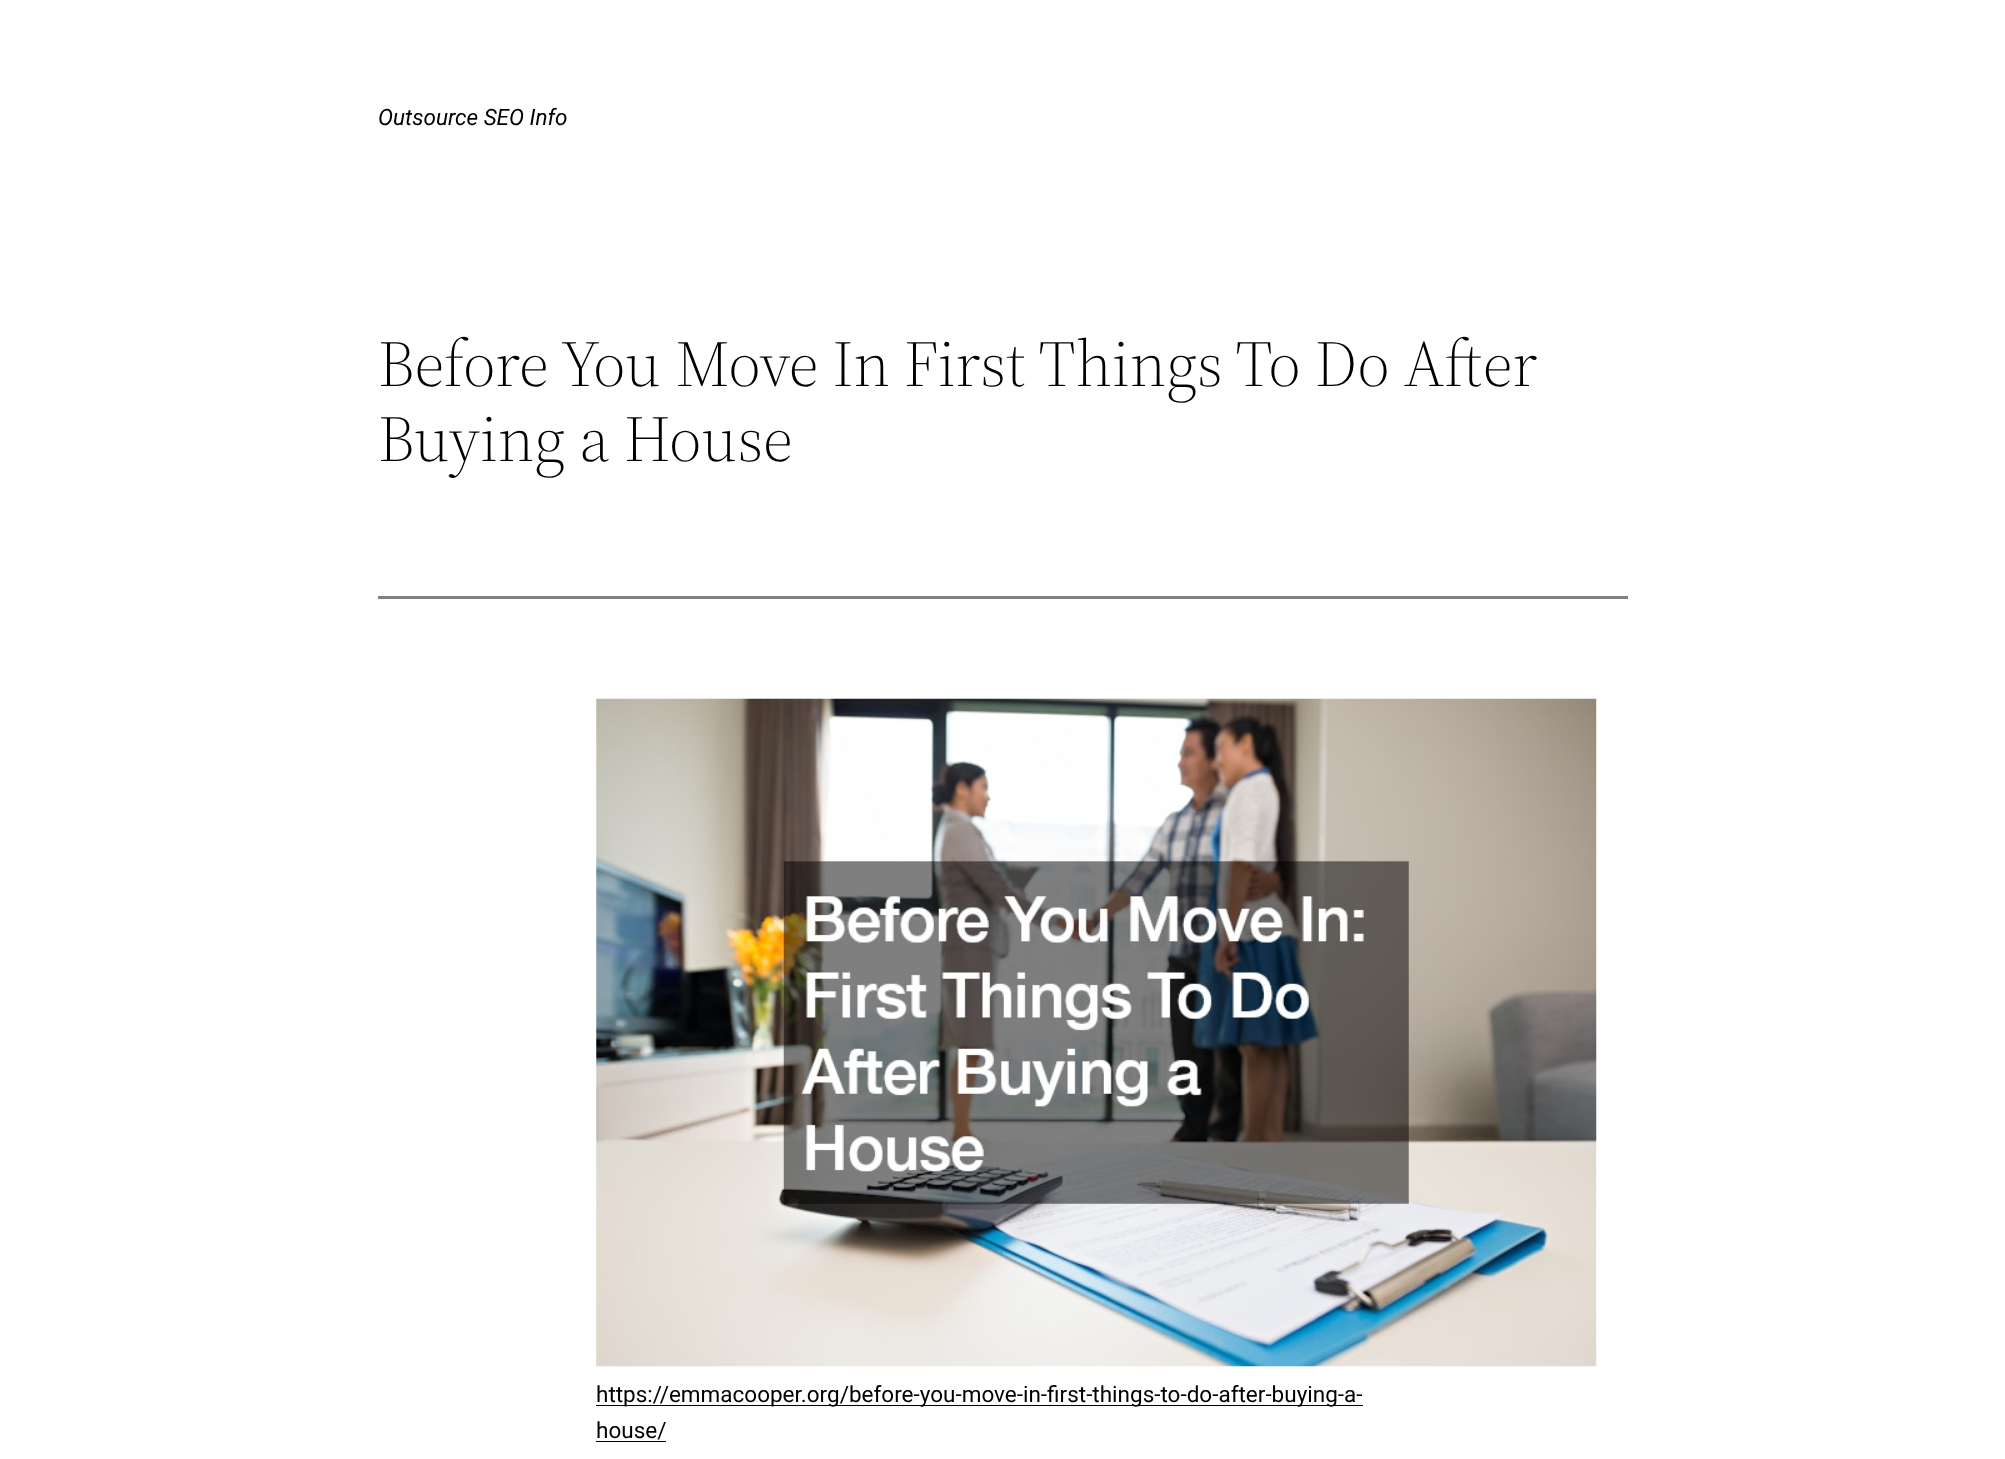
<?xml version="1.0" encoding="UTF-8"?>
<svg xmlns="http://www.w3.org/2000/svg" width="2005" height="1459">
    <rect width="100%" height="100%" fill="#FFFFFF"/>
    <text x="378" y="125" font-family="Roboto" font-size="22.5" font-style="italic" fill="#000000">Outsource SEO Info</text>
    <text font-family="'Source Serif 4'" font-size="65" font-weight="300" fill="#000000">
        <tspan x="378" y="386">Before You Move In First Things To Do After</tspan>
        <tspan x="378" y="461">Buying a House</tspan>
    </text>
    <rect x="378" y="596" width="1250" height="3" fill="#808080"/>
    <image x="596" y="698" width="1001" height="669" href="img_01.png"/>
    <rect x="596" y="1405" width="767" height="1" fill="#000000"/>
    <text font-family="Roboto" font-size="22.5" fill="#000000">
        <tspan x="596" y="1402">https://emmacooper.org/before-you-move-in-first-things-to-do-after-buying-a-</tspan>
        <tspan x="596" y="1438">house/</tspan>
    </text>
    <rect x="596" y="1441" width="70" height="1" fill="#000000"/>
</svg>
